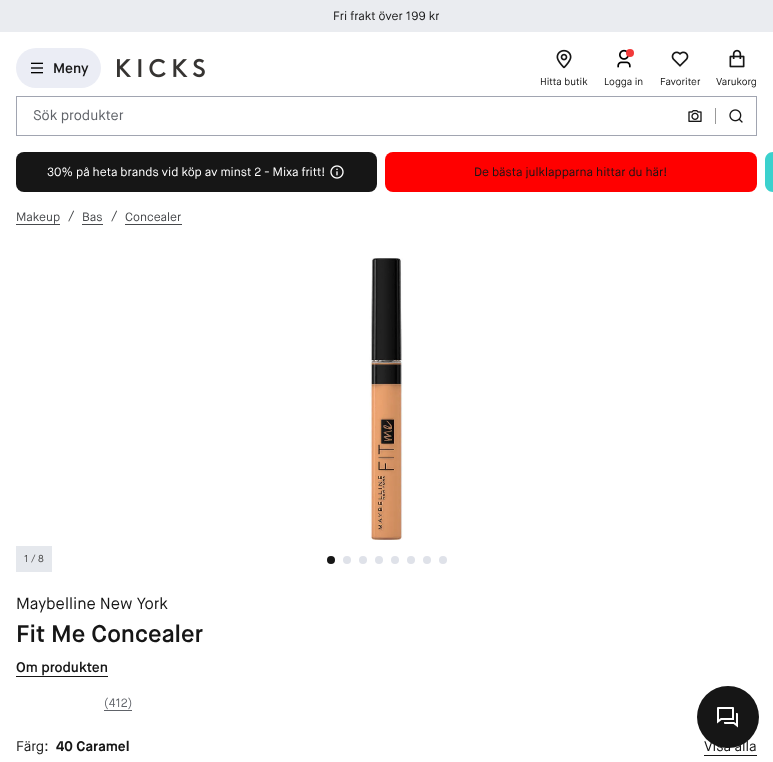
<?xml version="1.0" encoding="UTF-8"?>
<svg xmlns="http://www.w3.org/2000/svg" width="773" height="762">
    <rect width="100%" height="100%" fill="#FFFFFF"/>
    <rect x="0" y="0" width="773" height="32" fill="#EAECF0"/>
    <text x="333" y="20" font-family="Maison Neue" font-size="12" fill="#161616">Fri frakt över 199 kr</text>
    <rect x="16" y="48" width="85" height="40" rx="20" fill="#EBEDF5"/>
    <image x="31" y="62" width="12" height="12" href="img_01.png"/>
    <text x="53" y="73" font-family="Maison Neue" font-size="14" font-weight="600" fill="#161616">Meny</text>
    <image x="117" y="58" width="88" height="20" href="img_02.png"/>
    <image x="556" y="49" width="16" height="20" href="img_03.png"/>
    <text x="540" y="85" font-family="Maison Neue" font-size="10" fill="#161616">Hitta butik</text>
    <image x="617" y="49" width="14" height="19" href="img_04.png"/>
    <circle cx="630" cy="53" r="4" fill="#F23939"/>
    <text x="604" y="85" font-family="Maison Neue" font-size="10" fill="#161616">Logga in</text>
    <image x="671" y="51" width="18" height="16" href="img_05.png"/>
    <text x="660" y="85" font-family="Maison Neue" font-size="10" fill="#161616">Favoriter</text>
    <image x="729" y="49" width="16" height="19" href="img_06.png"/>
    <text x="716" y="85" font-family="Maison Neue" font-size="10" fill="#161616">Varukorg</text>
    <rect x="16.5" y="96.5" width="740" height="39" fill="none" stroke="#A1A5B1"/>
    <text x="33" y="120" font-family="Maison Neue" font-size="14" fill="#606369">Sök produkter</text>
    <image x="688" y="110" width="14" height="12" href="img_07.png"/>
    <rect x="715" y="108" width="1" height="16" fill="#999999"/>
    <image x="729" y="109" width="14" height="14" href="img_08.png"/>
    <rect x="16" y="152" width="361" height="40" rx="8" fill="#161616"/>
    <text x="47" y="176" font-family="Maison Neue" font-size="12" fill="#FFFFFF">30% på heta brands vid köp av minst 2 - Mixa fritt!</text>
    <image x="330" y="165" width="14" height="14" href="img_09.png"/>
    <rect x="385" y="152" width="372" height="40" rx="8" fill="#FF0000"/>
    <text x="474" y="176" font-family="Maison Neue" font-size="12" fill="#161616">De bästa julklapparna hittar du här!</text>
    <path d="M 773 152 V 192 C 768.5 192 765 188.5 765 184 V 160 C 765 155.5 768.5 152 773 152 Z" fill="#3BD1CD"/>
    <text x="16" y="221" font-family="Maison Neue" font-size="12" fill="#47494C">Makeup</text>
    <rect x="16" y="224" width="44" height="1" fill="#47494C"/>
    <text x="68" y="221" font-family="Maison Neue" font-size="14" fill="#47494C">/</text>
    <text x="82" y="221" font-family="Maison Neue" font-size="12" fill="#47494C">Bas</text>
    <rect x="82" y="224" width="21" height="1" fill="#47494C"/>
    <text x="111" y="221" font-family="Maison Neue" font-size="14" fill="#47494C">/</text>
    <text x="125" y="221" font-family="Maison Neue" font-size="12" fill="#47494C">Concealer</text>
    <rect x="125" y="224" width="57" height="1" fill="#47494C"/>
    <image x="369" y="258" width="34" height="282" href="img_10.png"/>
    <rect x="16" y="546" width="36" height="26" fill="#E5E8ED"/>
    <text x="24" y="562" font-family="Maison Neue" font-size="10" fill="#454545">1 / 8</text>
    <circle cx="331" cy="560" r="4" fill="#161616"/>
    <circle cx="347" cy="560" r="4" fill="#DFE2E9"/>
    <circle cx="363" cy="560" r="4" fill="#DFE2E9"/>
    <circle cx="379" cy="560" r="4" fill="#DFE2E9"/>
    <circle cx="395" cy="560" r="4" fill="#DFE2E9"/>
    <circle cx="411" cy="560" r="4" fill="#DFE2E9"/>
    <circle cx="427" cy="560" r="4" fill="#DFE2E9"/>
    <circle cx="443" cy="560" r="4" fill="#DFE2E9"/>
    <text x="16" y="609" font-family="Maison Neue" font-size="16" fill="#161616">Maybelline New York</text>
    <text x="16" y="642" font-family="Maison Neue" font-size="24" font-weight="600" fill="#161616">Fit Me Concealer</text>
    <text x="16" y="672" font-family="Maison Neue" font-size="14" font-weight="600" fill="#161616">Om produkten</text>
    <rect x="16" y="676" width="92" height="1" fill="#161616"/>
    <text x="104" y="707" font-family="Maison Neue" font-size="12" fill="#606369">(412)</text>
    <rect x="104" y="710" width="28" height="1" fill="#606369"/>
    <text x="16" y="751" font-family="Maison Neue" font-size="14" fill="#161616">Färg:</text>
    <text x="56" y="751" font-family="Maison Neue" font-size="14" font-weight="700" fill="#161616">40 Caramel</text>
    <text x="704" y="751" font-family="Maison Neue" font-size="14" fill="#161616">Visa alla</text>
    <rect x="704" y="755" width="53" height="1" fill="#161616"/>
    <circle cx="728" cy="717" r="31" fill="#161616"/>
    <image x="717" y="707" width="21" height="21" href="img_11.png"/>
</svg>
